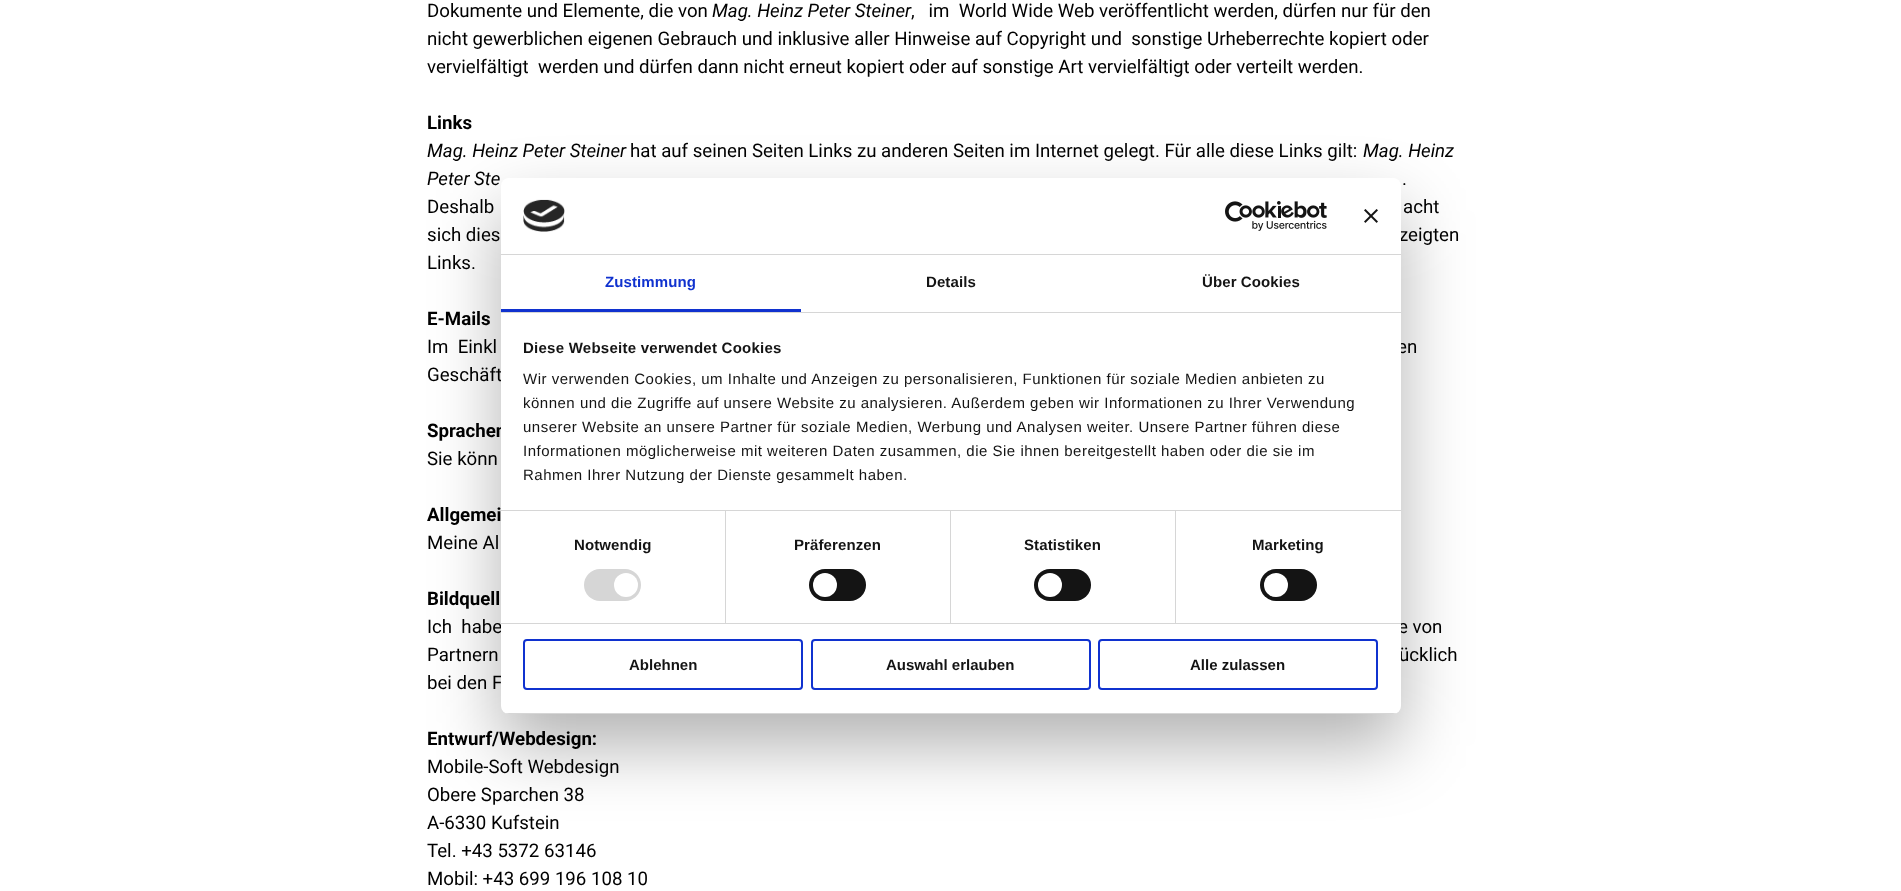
<?xml version="1.0" encoding="UTF-8"?>
<svg xmlns="http://www.w3.org/2000/svg" width="1901" height="891">
    <defs>
        <filter id="blur1" x="-50%" y="-200%" width="200%" height="500%"><feGaussianBlur stdDeviation="34"/></filter>
        <clipPath id="clip1"><rect x="501" y="178" width="900" height="536" rx="8"/></clipPath>
    </defs>
    <rect width="100%" height="100%" fill="#FFFFFF"/>
    <text x="427" y="17" font-family="Roboto" font-size="18.67" fill="#000000">Dokumente und Elemente, die von</text>
    <text x="712" y="17" font-family="Roboto" font-size="18.67" font-style="italic" fill="#000000">Mag. Heinz Peter Steiner</text>
    <text x="911" y="17" font-family="Roboto" font-size="18.67" fill="#000000" xml:space="preserve">,   im  World Wide Web veröffentlicht werden, dürfen nur für den</text>
    <text font-family="Roboto" font-size="18.67" fill="#000000" xml:space="preserve"><tspan x="427" y="45">nicht gewerblichen eigenen Gebrauch und inklusive aller Hinweise auf Copyright und  sonstige Urheberrechte kopiert oder</tspan><tspan x="427" y="73">vervielfältigt  werden und dürfen dann nicht erneut kopiert oder auf sonstige Art vervielfältigt oder verteilt werden.</tspan></text>
    <text x="427" y="129" font-family="Roboto" font-size="18.67" font-weight="700" fill="#000000">Links</text>
    <text x="427" y="157" font-family="Roboto" font-size="18.67" font-style="italic" fill="#000000">Mag. Heinz Peter Steiner</text>
    <text x="630" y="157" font-family="Roboto" font-size="18.67" fill="#000000">hat auf seinen Seiten Links zu anderen Seiten im Internet gelegt. Für alle diese Links gilt:</text>
    <text x="1363" y="157" font-family="Roboto" font-size="18.67" font-style="italic" fill="#000000">Mag. Heinz</text>
    <text x="427" y="185" font-family="Roboto" font-size="18.67" font-style="italic" fill="#000000">Peter Ste</text>
    <text x="1402" y="185" font-family="Roboto" font-size="18.67" fill="#000000">.</text>
    <text x="427" y="213" font-family="Roboto" font-size="18.67" fill="#000000">Deshalb</text>
    <text x="1403" y="213" font-family="Roboto" font-size="18.67" fill="#000000">acht</text>
    <text x="427" y="241" font-family="Roboto" font-size="18.67" fill="#000000">sich dies</text>
    <text x="1399" y="241" font-family="Roboto" font-size="18.67" fill="#000000">zeigten</text>
    <text x="427" y="269" font-family="Roboto" font-size="18.67" fill="#000000">Links.</text>
    <text x="427" y="325" font-family="Roboto" font-size="18.67" font-weight="700" fill="#000000">E-Mails</text>
    <text x="427" y="353" font-family="Roboto" font-size="18.67" fill="#000000" xml:space="preserve">Im  Einkl</text>
    <text x="1397" y="353" font-family="Roboto" font-size="18.67" fill="#000000">en</text>
    <text x="427" y="381" font-family="Roboto" font-size="18.67" fill="#000000">Geschäft</text>
    <text x="427" y="437" font-family="Roboto" font-size="18.67" font-weight="700" fill="#000000">Sprachen</text>
    <text x="427" y="465" font-family="Roboto" font-size="18.67" fill="#000000">Sie könn</text>
    <text x="427" y="521" font-family="Roboto" font-size="18.67" font-weight="700" fill="#000000">Allgemei</text>
    <text x="427" y="549" font-family="Roboto" font-size="18.67" fill="#000000">Meine Al</text>
    <text x="427" y="605" font-family="Roboto" font-size="18.67" font-weight="700" fill="#000000">Bildquell</text>
    <text x="427" y="633" font-family="Roboto" font-size="18.67" fill="#000000" xml:space="preserve">Ich  habe</text>
    <text x="1398" y="633" font-family="Roboto" font-size="18.67" fill="#000000">e von</text>
    <text x="427" y="661" font-family="Roboto" font-size="18.67" fill="#000000">Partnern</text>
    <text x="1399" y="661" font-family="Roboto" font-size="18.67" fill="#000000">ücklich</text>
    <text x="427" y="689" font-family="Roboto" font-size="18.67" fill="#000000">bei den F</text>
    <text x="427" y="745" font-family="Roboto" font-size="18.67" font-weight="700" fill="#000000">Entwurf/Webdesign:</text>
    <text font-family="Roboto" font-size="18.67" fill="#000000">
        <tspan x="427" y="773">Mobile-Soft Webdesign</tspan>
        <tspan x="427" y="801">Obere Sparchen 38</tspan>
        <tspan x="427" y="829">A-6330 Kufstein</tspan>
        <tspan x="427" y="857">Tel. +43 5372 63146</tspan>
        <tspan x="427" y="885">Mobil: +43 699 196 108 10</tspan>
    </text>
    <rect x="501" y="210" width="900" height="536" rx="8" fill="#000000" fill-opacity="0.3" filter="url(#blur1)"/>
    <rect x="501" y="178" width="900" height="536" rx="8" fill="#FFFFFF"/>
    <rect x="501" y="254" width="900" height="1" fill="#D6D6D6"/>
    <image x="523" y="199" width="42" height="33" href="img_01.png"/>
    <image x="1225" y="201" width="102" height="30" href="img_02.png"/>
    <image x="1364" y="209" width="14" height="14" href="img_03.png"/>
    <rect x="501" y="312" width="900" height="1" fill="#D6D6D6"/>
    <rect x="501" y="309" width="300" height="3" fill="#1032CF"/>
    <text x="605" y="287" font-family="Liberation Sans" font-size="15" font-weight="700" letter-spacing="0.1" fill="#1032CF">Zustimmung</text>
    <text x="926" y="287" font-family="Liberation Sans" font-size="15" font-weight="700" letter-spacing="0.1" fill="#141414">Details</text>
    <text x="1202" y="287" font-family="Liberation Sans" font-size="15" font-weight="700" letter-spacing="0.1" fill="#141414">Über Cookies</text>
    <rect x="501" y="510" width="900" height="1" fill="#D6D6D6"/>
    <text x="523" y="353" font-family="Liberation Sans" font-size="15" font-weight="700" letter-spacing="0.25" fill="#141414">Diese Webseite verwendet Cookies</text>
    <text font-family="Liberation Sans" font-size="15" letter-spacing="0.5" fill="#141414">
        <tspan x="523" y="384">Wir verwenden Cookies, um Inhalte und Anzeigen zu personalisieren, Funktionen für soziale Medien anbieten zu</tspan>
        <tspan x="523" y="408">können und die Zugriffe auf unsere Website zu analysieren. Außerdem geben wir Informationen zu Ihrer Verwendung</tspan>
        <tspan x="523" y="432">unserer Website an unsere Partner für soziale Medien, Werbung und Analysen weiter. Unsere Partner führen diese</tspan>
        <tspan x="523" y="456">Informationen möglicherweise mit weiteren Daten zusammen, die Sie ihnen bereitgestellt haben oder die sie im</tspan>
        <tspan x="523" y="480">Rahmen Ihrer Nutzung der Dienste gesammelt haben.</tspan>
    </text>
    <rect x="501" y="623" width="900" height="1" fill="#D6D6D6"/>
    <rect x="725" y="511" width="1" height="112" fill="#D6D6D6"/>
    <text x="574" y="550" font-family="Liberation Sans" font-size="15" font-weight="700" letter-spacing="0.1" fill="#141414">Notwendig</text>
    <rect x="584" y="569" width="57" height="32" rx="16" fill="#D6D6D6"/>
    <circle cx="626" cy="585" r="12" fill="#FFFFFF"/>
    <rect x="950" y="511" width="1" height="112" fill="#D6D6D6"/>
    <text x="794" y="550" font-family="Liberation Sans" font-size="15" font-weight="700" letter-spacing="0.1" fill="#141414">Präferenzen</text>
    <rect x="809" y="569" width="57" height="32" rx="16" fill="#141414"/>
    <circle cx="825" cy="585" r="12" fill="#FFFFFF"/>
    <rect x="1175" y="511" width="1" height="112" fill="#D6D6D6"/>
    <text x="1024" y="550" font-family="Liberation Sans" font-size="15" font-weight="700" letter-spacing="0.1" fill="#141414">Statistiken</text>
    <rect x="1034" y="569" width="57" height="32" rx="16" fill="#141414"/>
    <circle cx="1050" cy="585" r="12" fill="#FFFFFF"/>
    <text x="1252" y="550" font-family="Liberation Sans" font-size="15" font-weight="700" letter-spacing="0.1" fill="#141414">Marketing</text>
    <rect x="1260" y="569" width="57" height="32" rx="16" fill="#141414"/>
    <circle cx="1276" cy="585" r="12" fill="#FFFFFF"/>
    <g clip-path="url(#clip1)">
        <rect x="501" y="713" width="900" height="1" fill="#D6D6D6"/>
    </g>
    <rect x="524" y="640" width="278" height="49" rx="3" fill="none" stroke="#1032CF" stroke-width="2"/>
    <text x="629" y="670" font-family="Liberation Sans" font-size="15" font-weight="700" fill="#141414">Ablehnen</text>
    <rect x="812" y="640" width="278" height="49" rx="3" fill="none" stroke="#1032CF" stroke-width="2"/>
    <text x="886" y="670" font-family="Liberation Sans" font-size="15" font-weight="700" fill="#141414">Auswahl erlauben</text>
    <rect x="1099" y="640" width="278" height="49" rx="3" fill="none" stroke="#1032CF" stroke-width="2"/>
    <text x="1190" y="670" font-family="Liberation Sans" font-size="15" font-weight="700" fill="#141414">Alle zulassen</text>
</svg>
